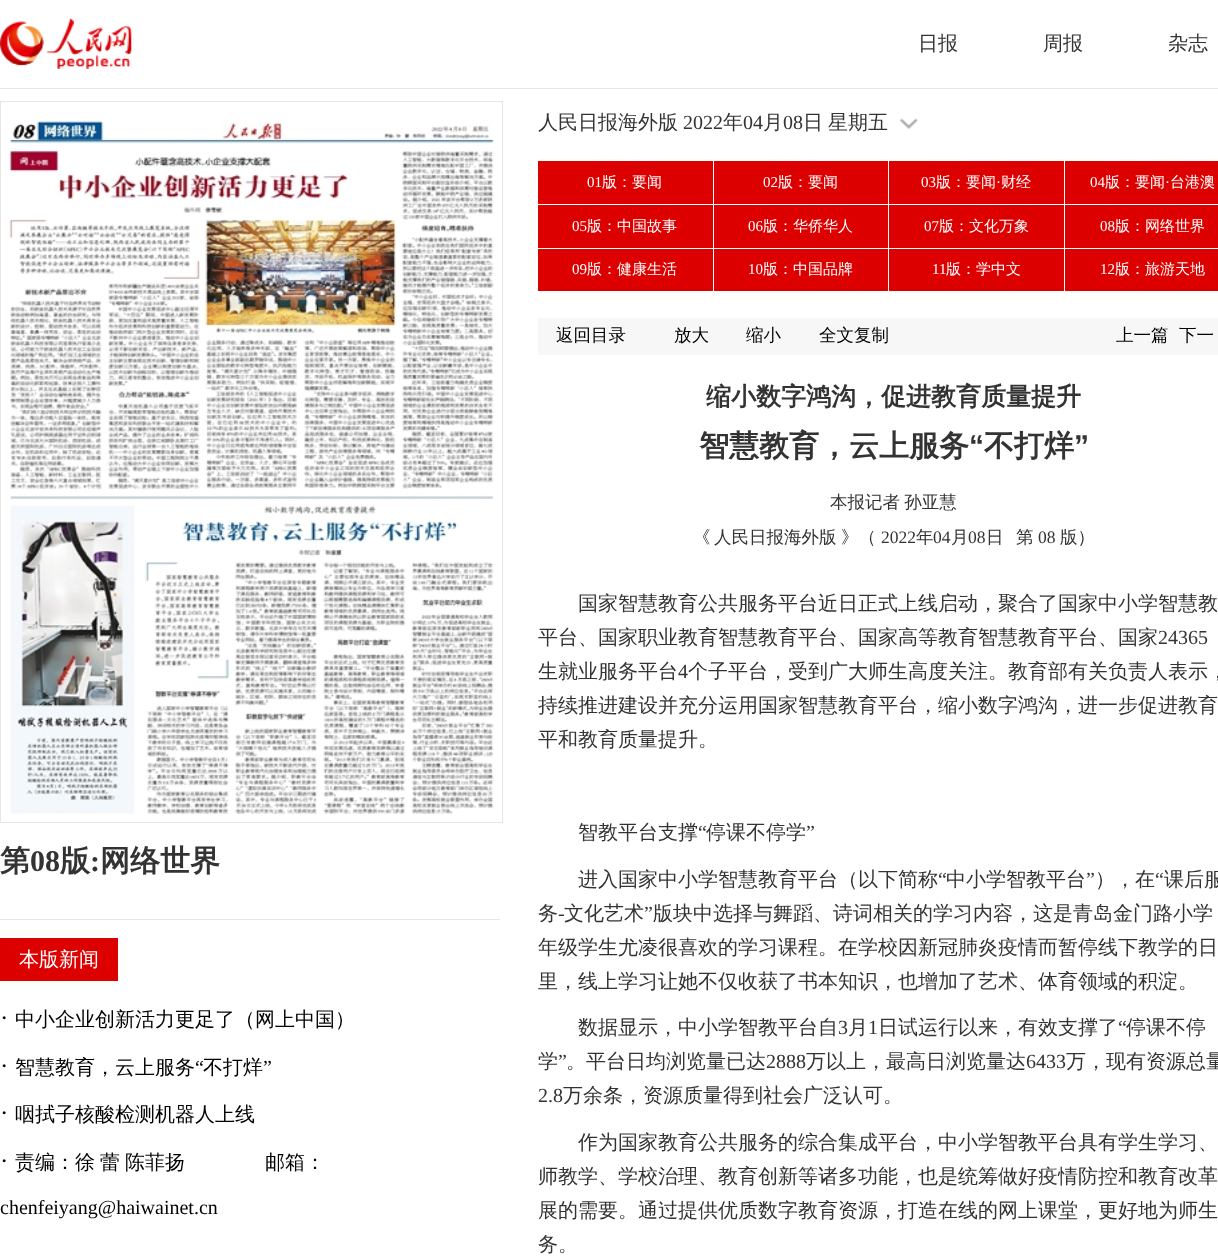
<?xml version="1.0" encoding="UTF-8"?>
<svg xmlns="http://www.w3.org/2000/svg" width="1218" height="1260">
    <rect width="100%" height="100%" fill="#FFFFFF"/>
    <rect x="0" y="88" width="1218" height="1" fill="#E6E6E6"/>
    <image x="0" y="18" width="132" height="51" href="img_01.png"/>
    <text x="918" y="50" font-family="WenQuanYi Zen Hei" font-size="20" font-weight="500" fill="#333333">日报</text>
    <text x="1043" y="50" font-family="WenQuanYi Zen Hei" font-size="20" font-weight="500" fill="#333333">周报</text>
    <text x="1168" y="50" font-family="WenQuanYi Zen Hei" font-size="20" font-weight="500" fill="#333333">杂志</text>
    <rect x="0.5" y="101.5" width="502" height="721" fill="none" stroke="#E6E6E6"/>
    <image x="8" y="120" width="486" height="694" href="img_02.png"/>
    <text x="0" y="871" font-family="WenQuanYi Zen Hei" font-size="30" font-weight="700" fill="#333333">第</text>
    <text x="30" y="871" font-family="Liberation Serif" font-size="30" font-weight="700" fill="#333333">08</text>
    <text x="60" y="871" font-family="WenQuanYi Zen Hei" font-size="30" font-weight="700" fill="#333333">版</text>
    <text x="90" y="871" font-family="Liberation Serif" font-size="30" font-weight="700" fill="#333333">:</text>
    <text x="100" y="871" font-family="WenQuanYi Zen Hei" font-size="30" font-weight="700" fill="#333333">网络世界</text>
    <rect x="0" y="919" width="500" height="1" fill="#E6E6E6"/>
    <rect x="0" y="938" width="118" height="43" fill="#DD0000"/>
    <text x="19" y="966" font-family="WenQuanYi Zen Hei" font-size="20" font-weight="500" fill="#FFFFFF">本版新闻</text>
    <text x="0" y="1026" font-family="Liberation Serif" font-size="25" fill="#010101">·</text>
    <text x="15" y="1026" font-family="WenQuanYi Zen Hei" font-size="20" font-weight="500" fill="#010101">中小企业创新活力更足了（网上中国）</text>
    <text x="0" y="1074" font-family="Liberation Serif" font-size="25" fill="#010101">·</text>
    <text x="15" y="1074" font-family="WenQuanYi Zen Hei" font-size="20" font-weight="500" fill="#010101">智慧教育，云上服务</text>
    <text x="195" y="1074" font-family="Liberation Serif" font-size="20" fill="#010101">“</text>
    <text x="203" y="1074" font-family="WenQuanYi Zen Hei" font-size="20" font-weight="500" fill="#010101">不打烊</text>
    <text x="263" y="1074" font-family="Liberation Serif" font-size="20" fill="#010101">”</text>
    <text x="0" y="1121" font-family="Liberation Serif" font-size="25" fill="#010101">·</text>
    <text x="15" y="1121" font-family="WenQuanYi Zen Hei" font-size="20" font-weight="500" fill="#010101">咽拭子核酸检测机器人上线</text>
    <text x="0" y="1169" font-family="Liberation Serif" font-size="25" fill="#010101">·</text>
    <text x="15" y="1169" word-spacing="-1" font-family="WenQuanYi Zen Hei" font-size="20" font-weight="500" fill="#010101">责编：徐 蕾 陈菲扬　　　　邮箱：</text>
    <text x="0" y="1214" font-family="Liberation Serif" font-size="20" fill="#010101">chenfeiyang@haiwainet.cn</text>
    <text x="538" y="129" font-family="WenQuanYi Zen Hei" font-size="20" font-weight="500" fill="#333333">人民日报海外版</text>
    <text x="683" y="129" font-family="Liberation Serif" font-size="20" fill="#333333">2022</text>
    <text x="723" y="129" font-family="WenQuanYi Zen Hei" font-size="20" font-weight="500" fill="#333333">年</text>
    <text x="743" y="129" font-family="Liberation Serif" font-size="20" fill="#333333">04</text>
    <text x="763" y="129" font-family="WenQuanYi Zen Hei" font-size="20" font-weight="500" fill="#333333">月</text>
    <text x="783" y="129" font-family="Liberation Serif" font-size="20" fill="#333333">08</text>
    <text x="803" y="129" word-spacing="-1" font-family="WenQuanYi Zen Hei" font-size="20" font-weight="500" fill="#333333">日 星期五</text>
    <image x="900" y="118" width="18" height="11" href="img_03.png"/>
    <rect x="538" y="161" width="175" height="43" fill="#DD0000"/>
    <text x="587" y="187" font-family="Liberation Serif" font-size="15" fill="#FFFFFF">01</text>
    <text x="602" y="187" font-family="WenQuanYi Zen Hei" font-size="15" font-weight="500" fill="#FFFFFF">版：要闻</text>
    <rect x="714" y="161" width="174" height="43" fill="#DD0000"/>
    <text x="763" y="187" font-family="Liberation Serif" font-size="15" fill="#FFFFFF">02</text>
    <text x="778" y="187" font-family="WenQuanYi Zen Hei" font-size="15" font-weight="500" fill="#FFFFFF">版：要闻</text>
    <rect x="889" y="161" width="175" height="43" fill="#DD0000"/>
    <text x="921" y="187" font-family="Liberation Serif" font-size="15" fill="#FFFFFF">03</text>
    <text x="936" y="187" font-family="WenQuanYi Zen Hei" font-size="15" font-weight="500" fill="#FFFFFF">版：要闻</text>
    <text x="996" y="187" font-family="Liberation Serif" font-size="15" fill="#FFFFFF">·</text>
    <text x="1001" y="187" font-family="WenQuanYi Zen Hei" font-size="15" font-weight="500" fill="#FFFFFF">财经</text>
    <rect x="1065" y="161" width="153" height="43" fill="#DD0000"/>
    <text x="1090" y="187" font-family="Liberation Serif" font-size="15" fill="#FFFFFF">04</text>
    <text x="1105" y="187" font-family="WenQuanYi Zen Hei" font-size="15" font-weight="500" fill="#FFFFFF">版：要闻</text>
    <text x="1165" y="187" font-family="Liberation Serif" font-size="15" fill="#FFFFFF">·</text>
    <text x="1170" y="187" font-family="WenQuanYi Zen Hei" font-size="15" font-weight="500" fill="#FFFFFF">台港澳</text>
    <rect x="538" y="205" width="175" height="43" fill="#DD0000"/>
    <text x="572" y="231" font-family="Liberation Serif" font-size="15" fill="#FFFFFF">05</text>
    <text x="587" y="231" font-family="WenQuanYi Zen Hei" font-size="15" font-weight="500" fill="#FFFFFF">版：中国故事</text>
    <rect x="714" y="205" width="174" height="43" fill="#DD0000"/>
    <text x="748" y="231" font-family="Liberation Serif" font-size="15" fill="#FFFFFF">06</text>
    <text x="763" y="231" font-family="WenQuanYi Zen Hei" font-size="15" font-weight="500" fill="#FFFFFF">版：华侨华人</text>
    <rect x="889" y="205" width="175" height="43" fill="#DD0000"/>
    <text x="924" y="231" font-family="Liberation Serif" font-size="15" fill="#FFFFFF">07</text>
    <text x="939" y="231" font-family="WenQuanYi Zen Hei" font-size="15" font-weight="500" fill="#FFFFFF">版：文化万象</text>
    <rect x="1065" y="205" width="153" height="43" fill="#DD0000"/>
    <text x="1100" y="231" font-family="Liberation Serif" font-size="15" fill="#FFFFFF">08</text>
    <text x="1115" y="231" font-family="WenQuanYi Zen Hei" font-size="15" font-weight="500" fill="#FFFFFF">版：网络世界</text>
    <rect x="538" y="249" width="175" height="42" fill="#DD0000"/>
    <text x="572" y="274" font-family="Liberation Serif" font-size="15" fill="#FFFFFF">09</text>
    <text x="587" y="274" font-family="WenQuanYi Zen Hei" font-size="15" font-weight="500" fill="#FFFFFF">版：健康生活</text>
    <rect x="714" y="249" width="174" height="42" fill="#DD0000"/>
    <text x="748" y="274" font-family="Liberation Serif" font-size="15" fill="#FFFFFF">10</text>
    <text x="763" y="274" font-family="WenQuanYi Zen Hei" font-size="15" font-weight="500" fill="#FFFFFF">版：中国品牌</text>
    <rect x="889" y="249" width="175" height="42" fill="#DD0000"/>
    <text x="932" y="274" font-family="Liberation Serif" font-size="15" fill="#FFFFFF">11</text>
    <text x="946" y="274" font-family="WenQuanYi Zen Hei" font-size="15" font-weight="500" fill="#FFFFFF">版：学中文</text>
    <rect x="1065" y="249" width="153" height="42" fill="#DD0000"/>
    <text x="1100" y="274" font-family="Liberation Serif" font-size="15" fill="#FFFFFF">12</text>
    <text x="1115" y="274" font-family="WenQuanYi Zen Hei" font-size="15" font-weight="500" fill="#FFFFFF">版：旅游天地</text>
    <rect x="538" y="318" width="680" height="37" fill="#F7F7F7"/>
    <text x="556" y="341" font-family="WenQuanYi Zen Hei" font-size="17.5" font-weight="500" fill="#010101">返回目录</text>
    <text x="674" y="341" font-family="WenQuanYi Zen Hei" font-size="17.5" font-weight="500" fill="#010101">放大</text>
    <text x="746" y="341" font-family="WenQuanYi Zen Hei" font-size="17.5" font-weight="500" fill="#010101">缩小</text>
    <text x="819" y="341" font-family="WenQuanYi Zen Hei" font-size="17.5" font-weight="500" fill="#010101">全文复制</text>
    <text x="1116" y="341" font-family="WenQuanYi Zen Hei" font-size="17.5" font-weight="500" fill="#010101">上一篇</text>
    <text x="1179" y="341" font-family="WenQuanYi Zen Hei" font-size="17.5" font-weight="500" fill="#010101">下一</text>
    <text x="706" y="405" font-family="WenQuanYi Zen Hei" font-size="25" font-weight="700" fill="#333333">缩小数字鸿沟，促进教育质量提升</text>
    <text x="699" y="456" font-family="WenQuanYi Zen Hei" font-size="30" font-weight="700" fill="#333333">智慧教育，云上服务</text>
    <text x="969" y="456" font-family="Liberation Sans" font-size="30" font-weight="700" fill="#333333">“</text>
    <text x="984" y="456" font-family="WenQuanYi Zen Hei" font-size="30" font-weight="700" fill="#333333">不打烊</text>
    <text x="1074" y="456" font-family="Liberation Sans" font-size="30" font-weight="700" fill="#333333">”</text>
    <text x="830" y="508" word-spacing="-1" font-family="WenQuanYi Zen Hei" font-size="17.5" font-weight="500" fill="#333333">本报记者 孙亚慧</text>
    <text x="693" y="543" font-family="WenQuanYi Zen Hei" font-size="17.5" font-weight="500" fill="#333333">《</text>
    <text x="714" y="543" font-family="WenQuanYi Zen Hei" font-size="17.5" font-weight="500" fill="#333333">人民日报海外版</text>
    <text x="841" y="543" font-family="WenQuanYi Zen Hei" font-size="17.5" font-weight="500" fill="#333333">》（</text>
    <text x="881" y="543" font-family="Liberation Serif" font-size="17.5" fill="#333333">2022</text>
    <text x="916" y="543" font-family="WenQuanYi Zen Hei" font-size="17.5" font-weight="500" fill="#333333">年</text>
    <text x="933" y="543" font-family="Liberation Serif" font-size="17.5" fill="#333333">04</text>
    <text x="951" y="543" font-family="WenQuanYi Zen Hei" font-size="17.5" font-weight="500" fill="#333333">月</text>
    <text x="968" y="543" font-family="Liberation Serif" font-size="17.5" fill="#333333">08</text>
    <text x="986" y="543" font-family="WenQuanYi Zen Hei" font-size="17.5" font-weight="500" fill="#333333">日</text>
    <text x="1016" y="543" font-family="WenQuanYi Zen Hei" font-size="17.5" font-weight="500" fill="#333333">第</text>
    <text x="1038" y="543" font-family="Liberation Serif" font-size="17.5" fill="#333333">08</text>
    <text x="1060" y="543" font-family="WenQuanYi Zen Hei" font-size="17.5" font-weight="500" fill="#333333">版）</text>
    <text x="578" y="610" font-family="WenQuanYi Zen Hei" font-size="20" font-weight="500" fill="#333333">国家智慧教育公共服务平台近日正式上线启动，聚合了国家中小学智慧教</text>
    <text x="538" y="644" font-family="WenQuanYi Zen Hei" font-size="20" font-weight="500" fill="#333333">平台、国家职业教育智慧教育平台、国家高等教育智慧教育平台、国家</text>
    <text x="1158" y="644" font-family="Liberation Serif" font-size="20" fill="#333333">24365</text>
    <text x="538" y="678" font-family="WenQuanYi Zen Hei" font-size="20" font-weight="500" fill="#333333">生就业服务平台</text>
    <text x="678" y="678" font-family="Liberation Serif" font-size="20" fill="#333333">4</text>
    <text x="688" y="678" font-family="WenQuanYi Zen Hei" font-size="20" font-weight="500" fill="#333333">个子平台，受到广大师生高度关注。教育部有关负责人表示，</text>
    <text font-family="WenQuanYi Zen Hei" font-size="20" font-weight="500" fill="#333333">
        <tspan x="538" y="712">持续推进建设并充分运用国家智慧教育平台，缩小数字鸿沟，进一步促进教育</tspan>
        <tspan x="538" y="746">平和教育质量提升。</tspan>
    </text>
    <text x="578" y="839" font-family="WenQuanYi Zen Hei" font-size="20" font-weight="500" fill="#333333">智教平台支撑</text>
    <text x="698" y="839" font-family="Liberation Serif" font-size="20" fill="#333333">“</text>
    <text x="706" y="839" font-family="WenQuanYi Zen Hei" font-size="20" font-weight="500" fill="#333333">停课不停学</text>
    <text x="806" y="839" font-family="Liberation Serif" font-size="20" fill="#333333">”</text>
    <text x="578" y="886" font-family="WenQuanYi Zen Hei" font-size="20" font-weight="500" fill="#333333">进入国家中小学智慧教育平台（以下简称</text>
    <text x="938" y="886" font-family="Liberation Serif" font-size="20" fill="#333333">“</text>
    <text x="946" y="886" font-family="WenQuanYi Zen Hei" font-size="20" font-weight="500" fill="#333333">中小学智教平台</text>
    <text x="1086" y="886" font-family="Liberation Serif" font-size="20" fill="#333333">”</text>
    <text x="1095" y="886" font-family="WenQuanYi Zen Hei" font-size="20" font-weight="500" fill="#333333">），在</text>
    <text x="1155" y="886" font-family="Liberation Serif" font-size="20" fill="#333333">“</text>
    <text x="1164" y="886" font-family="WenQuanYi Zen Hei" font-size="20" font-weight="500" fill="#333333">课后服</text>
    <text x="538" y="920" font-family="WenQuanYi Zen Hei" font-size="20" font-weight="500" fill="#333333">务</text>
    <text x="564" y="920" font-family="WenQuanYi Zen Hei" font-size="20" font-weight="500" fill="#333333">文化艺术</text>
    <text x="644" y="920" font-family="Liberation Serif" font-size="20" fill="#333333">”</text>
    <text x="653" y="920" font-family="WenQuanYi Zen Hei" font-size="20" font-weight="500" fill="#333333">版块中选择与舞蹈、诗词相关的学习内容，这是青岛金门路小学</text>
    <text x="558" y="920" font-family="Liberation Serif" font-size="20" fill="#333333">-</text>
    <text font-family="WenQuanYi Zen Hei" font-size="20" font-weight="500" fill="#333333">
        <tspan x="538" y="954">年级学生尤凌很喜欢的学习课程。在学校因新冠肺炎疫情而暂停线下教学的日</tspan>
        <tspan x="538" y="988">里，线上学习让她不仅收获了书本知识，也增加了艺术、体育领域的积淀。</tspan>
    </text>
    <text x="578" y="1034" font-family="WenQuanYi Zen Hei" font-size="20" font-weight="500" fill="#333333">数据显示，中小学智教平台自</text>
    <text x="838" y="1034" font-family="Liberation Serif" font-size="20" fill="#333333">3</text>
    <text x="848" y="1034" font-family="WenQuanYi Zen Hei" font-size="20" font-weight="500" fill="#333333">月</text>
    <text x="868" y="1034" font-family="Liberation Serif" font-size="20" fill="#333333">1</text>
    <text x="878" y="1034" font-family="WenQuanYi Zen Hei" font-size="20" font-weight="500" fill="#333333">日试运行以来，有效支撑了</text>
    <text x="1118" y="1034" font-family="Liberation Serif" font-size="20" fill="#333333">“</text>
    <text x="1126" y="1034" font-family="WenQuanYi Zen Hei" font-size="20" font-weight="500" fill="#333333">停课不停</text>
    <text x="538" y="1068" font-family="WenQuanYi Zen Hei" font-size="20" font-weight="500" fill="#333333">学</text>
    <text x="558" y="1068" font-family="Liberation Serif" font-size="20" fill="#333333">”</text>
    <text x="566" y="1068" font-family="WenQuanYi Zen Hei" font-size="20" font-weight="500" fill="#333333">。平台日均浏览量已达</text>
    <text x="766" y="1068" font-family="Liberation Serif" font-size="20" fill="#333333">2888</text>
    <text x="806" y="1068" font-family="WenQuanYi Zen Hei" font-size="20" font-weight="500" fill="#333333">万以上，最高日浏览量达</text>
    <text x="1026" y="1068" font-family="Liberation Serif" font-size="20" fill="#333333">6433</text>
    <text x="1066" y="1068" font-family="WenQuanYi Zen Hei" font-size="20" font-weight="500" fill="#333333">万，现有资源总量</text>
    <text x="538" y="1102" font-family="Liberation Serif" font-size="20" fill="#333333">2.8</text>
    <text x="563" y="1102" font-family="WenQuanYi Zen Hei" font-size="20" font-weight="500" fill="#333333">万余条，资源质量得到社会广泛认可。</text>
    <text x="578" y="1149" font-family="WenQuanYi Zen Hei" font-size="20" font-weight="500" fill="#333333">作为国家教育公共服务的综合集成平台，中小学智教平台具有学生学习、</text>
    <text font-family="WenQuanYi Zen Hei" font-size="20" font-weight="500" fill="#333333">
        <tspan x="538" y="1183">师教学、学校治理、教育创新等诸多功能，也是统筹做好疫情防控和教育改革</tspan>
        <tspan x="538" y="1217">展的需要。通过提供优质数字教育资源，打造在线的网上课堂，更好地为师生</tspan>
        <tspan x="538" y="1251">务。</tspan>
    </text>
</svg>
